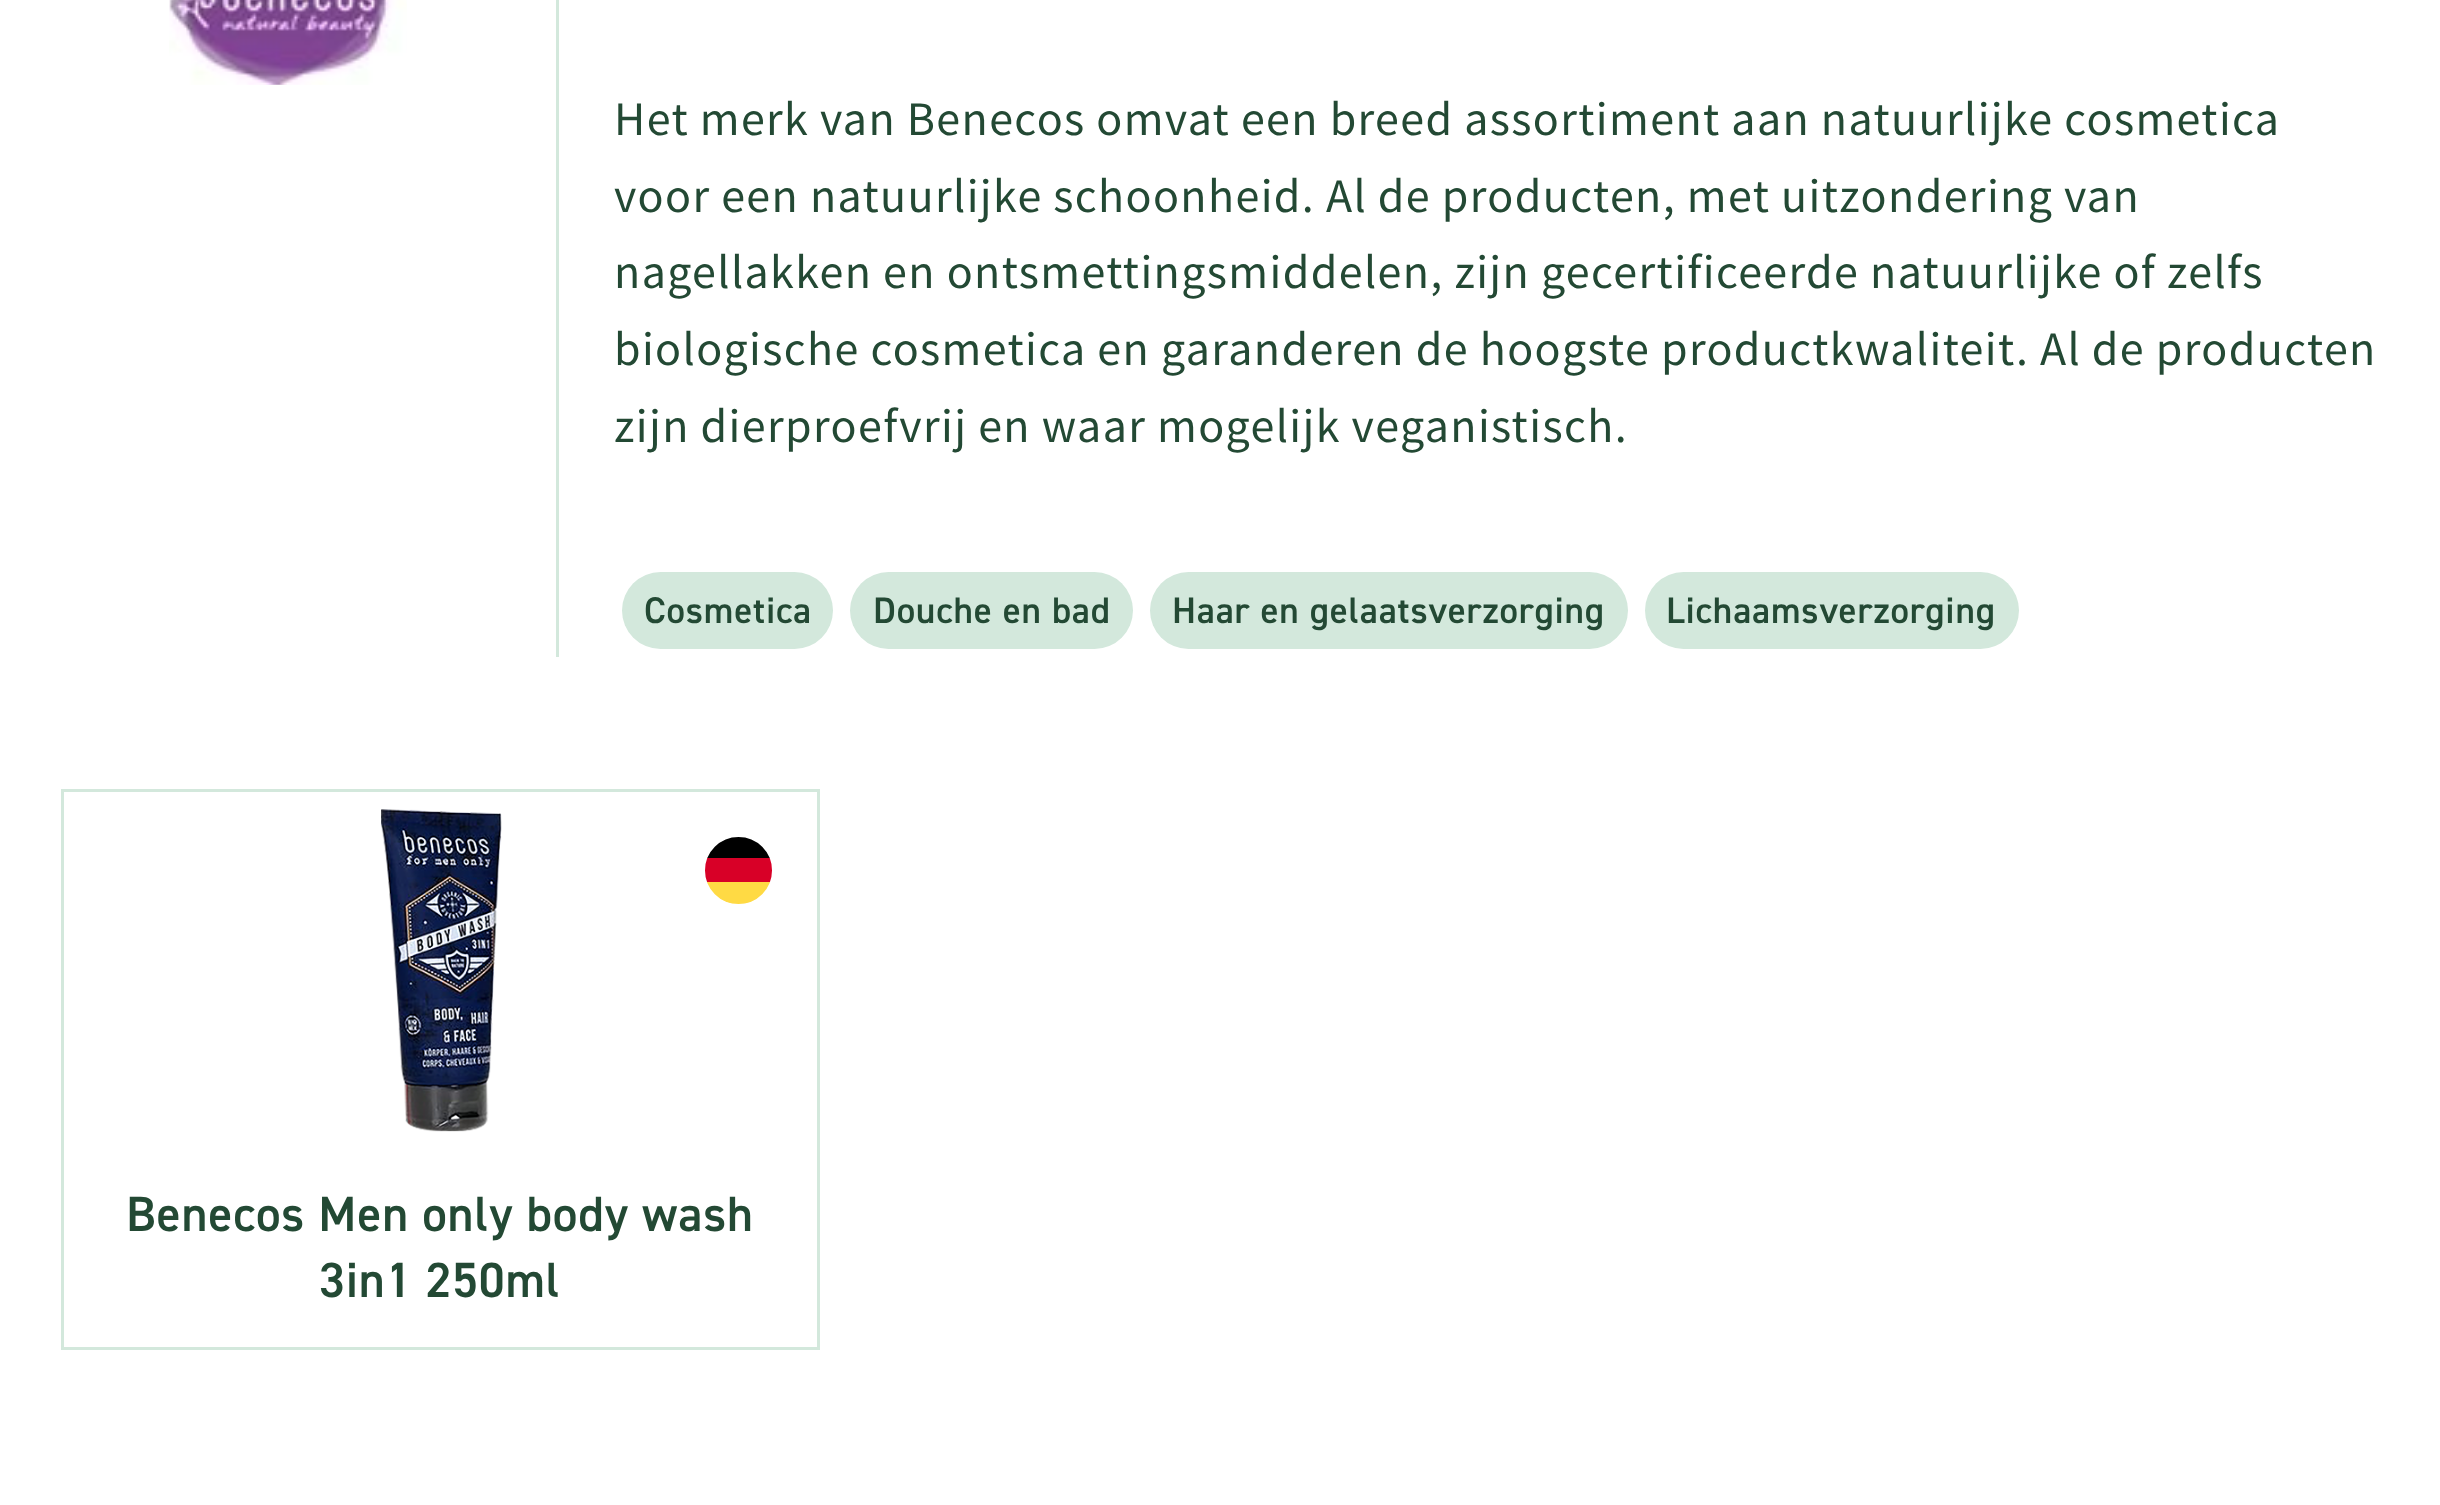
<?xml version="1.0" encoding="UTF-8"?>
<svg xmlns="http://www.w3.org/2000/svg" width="2440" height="1505">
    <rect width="100%" height="100%" fill="#FFFFFF"/>
    <image x="169" y="0" width="238" height="85" href="img_01.png"/>
    <rect x="556" y="0" width="3" height="657" fill="#D3E8DC"/>
    <text font-family="Source Sans Pro" font-size="48" letter-spacing="1.38" fill="#234934">
        <tspan x="614" y="135" word-spacing="-0.25">Het merk van Benecos omvat een breed assortiment aan natuurlijke cosmetica</tspan>
        <tspan x="614" y="212" word-spacing="-0.25">voor een natuurlijke schoonheid. Al de producten, met uitzondering van</tspan>
        <tspan x="614" y="288" word-spacing="-0.25">nagellakken en ontsmettingsmiddelen, zijn gecertificeerde natuurlijke of zelfs</tspan>
        <tspan x="614" y="365" word-spacing="-0.25">biologische cosmetica en garanderen de hoogste productkwaliteit. Al de producten</tspan>
        <tspan x="614" y="442" word-spacing="-0.25">zijn dierproefvrij en waar mogelijk veganistisch.</tspan>
    </text>
    <rect x="622" y="572" width="211" height="77" rx="38.5" fill="#D3E8DC"/>
    <text x="644" y="623" font-family="'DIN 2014'" font-size="37.1" font-weight="600" letter-spacing="0.8" fill="#234934">Cosmetica</text>
    <rect x="850" y="572" width="283" height="77" rx="38.5" fill="#D3E8DC"/>
    <text x="873" y="623" font-family="'DIN 2014'" font-size="37.1" font-weight="600" letter-spacing="0.8" fill="#234934">Douche en bad</text>
    <rect x="1150" y="572" width="478" height="77" rx="38.5" fill="#D3E8DC"/>
    <text x="1172" y="623" font-family="'DIN 2014'" font-size="37.1" font-weight="600" letter-spacing="0.8" fill="#234934">Haar en gelaatsverzorging</text>
    <rect x="1645" y="572" width="374" height="77" rx="38.5" fill="#D3E8DC"/>
    <text x="1666" y="623" font-family="'DIN 2014'" font-size="37.1" font-weight="600" letter-spacing="0.8" fill="#234934">Lichaamsverzorging</text>
    <rect x="62.5" y="790.5" width="756" height="558" fill="none" stroke="#D3E8DC" stroke-width="3"/>
    <image x="381" y="809" width="121" height="323" href="img_02.png"/>
    <path d="M 706 882 C 717 912 760 912 771 882 L 738 879 Z" fill="#FFDA44"/>
    <path d="M 738 836 C 724 836 711 845 706 858 L 738 861 L 771 858 C 766 845 753 836 738 836 Z" fill="#000000"/>
    <path d="M 706 858 C 703 866 703 875 706 882 H 771 C 773 875 773 866 771 858 Z" fill="#D80027"/>
    <circle cx="738.5" cy="870.5" r="42" fill="none" stroke="#FFFFFF" stroke-width="17"/>
    <text x="126" y="1231" font-family="'DIN 2014'" font-size="49.5" font-weight="600" letter-spacing="0.8" fill="#234934">Benecos Men only body wash</text>
    <text x="319" y="1297" font-family="'DIN 2014'" font-size="49.5" font-weight="600" letter-spacing="0.8" fill="#234934">3in1 250ml</text>
</svg>
